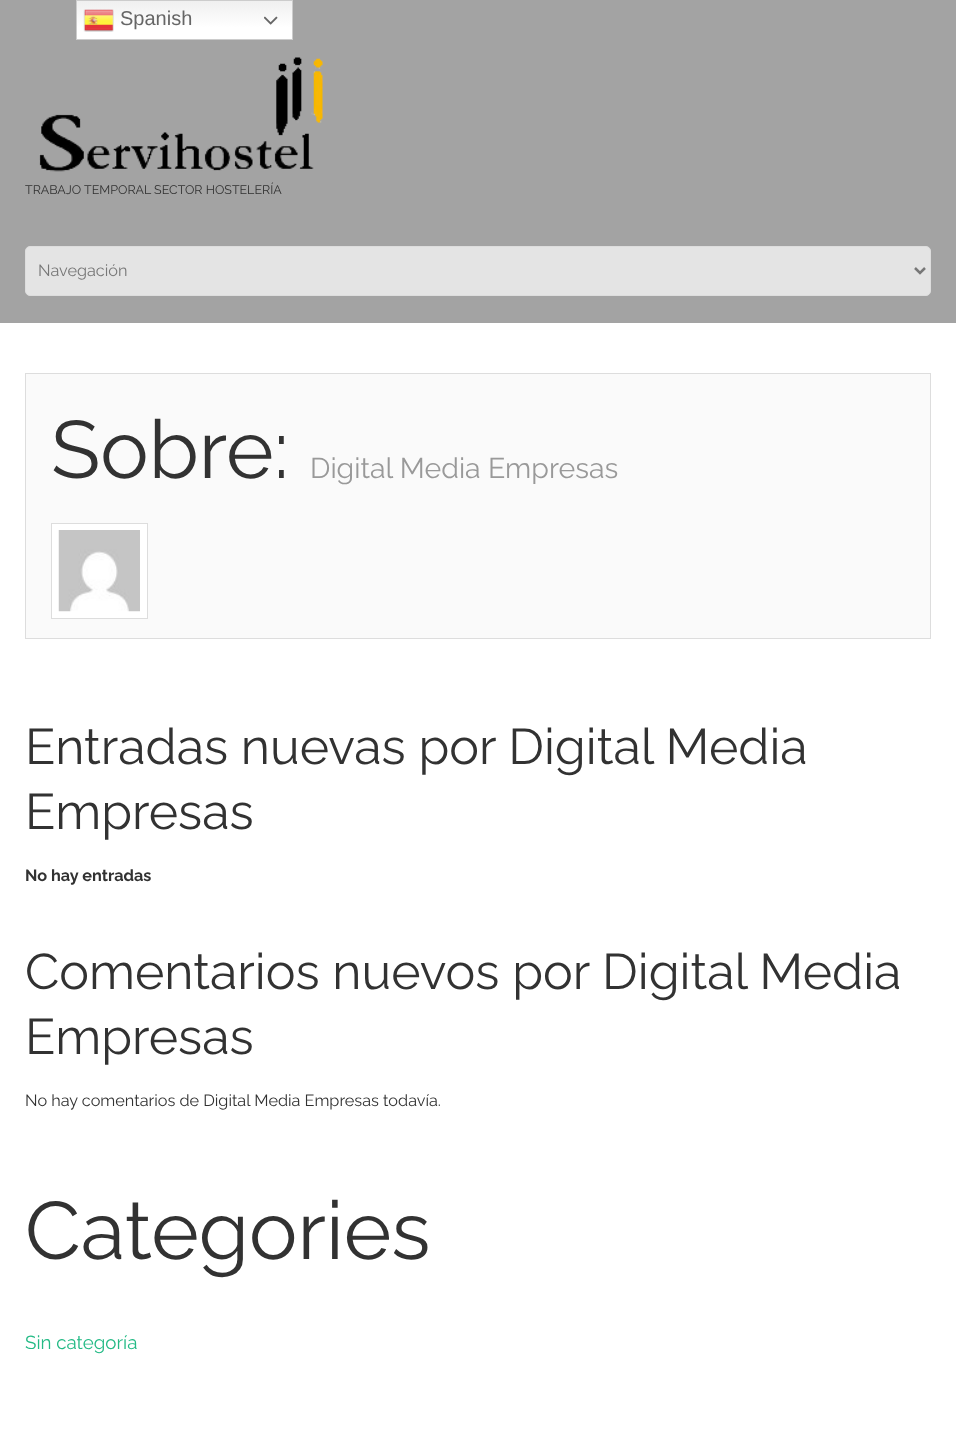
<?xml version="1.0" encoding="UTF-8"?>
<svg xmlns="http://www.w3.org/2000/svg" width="956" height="1447">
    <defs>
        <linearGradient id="g1" gradientUnits="userSpaceOnUse" x1="184" y1="0" x2="184" y2="40"><stop offset="0" stop-color="#EFEFEF"/><stop offset="0.7" stop-color="#FFFFFF"/></linearGradient>
    </defs>
    <rect width="100%" height="100%" fill="#FFFFFF"/>
    <rect x="0" y="0" width="956" height="323" fill="#A3A3A3"/>
    <rect x="77" y="1" width="215" height="38" fill="url(#g1)"/>
    <rect x="76.5" y="0.5" width="216" height="39" fill="none" stroke="#CCCCCC"/>
    <image x="83" y="9" width="31" height="23" href="img_01.png"/>
    <text x="120" y="25" font-family="Liberation Sans" font-size="20" fill="#666666">Spanish</text>
    <image x="264" y="16" width="14" height="9" href="img_02.png"/>
    <image x="39" y="57" width="284" height="115" href="img_03.png"/>
    <text x="25" y="194" font-family="Raleway" font-size="12.5" fill="#323232">TRABAJO TEMPORAL SECTOR HOSTELERÍA</text>
    <rect x="25.5" y="246.5" width="905" height="49" rx="4.5" fill="#E4E4E4" stroke="#DDDDDD"/>
    <path d="M 915 268 L 920 273 L 925 268" fill="none" stroke="#777777" stroke-width="2.5"/>
    <text x="38" y="276" font-family="Raleway" font-size="16.25" fill="#777777">Navegación</text>
    <rect x="25.5" y="373.5" width="905" height="265" fill="#FAFAFA" stroke="#DDDDDD"/>
    <text x="51" y="478" font-family="Raleway" font-size="81.25" fill="#323232">Sobre:</text>
    <text x="310" y="478" font-family="Raleway" font-size="28.5" fill="#999999">Digital Media Empresas</text>
    <rect x="51.5" y="523.5" width="96" height="95" fill="#FFFFFF" stroke="#DDDDDD"/>
    <image x="58" y="530" width="82" height="82" href="img_04.png"/>
    <text font-family="Raleway" font-size="50" fill="#323232">
        <tspan x="25" y="764">Entradas nuevas por Digital Media</tspan>
        <tspan x="25" y="829">Empresas</tspan>
    </text>
    <text x="25" y="881" font-family="Raleway" font-size="16.25" font-weight="700" fill="#323232">No hay entradas</text>
    <text font-family="Raleway" font-size="50" fill="#323232">
        <tspan x="25" y="989">Comentarios nuevos por Digital Media</tspan>
        <tspan x="25" y="1054">Empresas</tspan>
    </text>
    <text x="25" y="1106" font-family="Raleway" font-size="16.25" fill="#323232">No hay comentarios de Digital Media Empresas todavía.</text>
    <text x="25" y="1259" font-family="Raleway" font-size="81.25" fill="#323232">Categories</text>
    <text x="25" y="1349" font-family="Raleway" font-size="18.75" fill="#23BA85">Sin categoría</text>
</svg>
